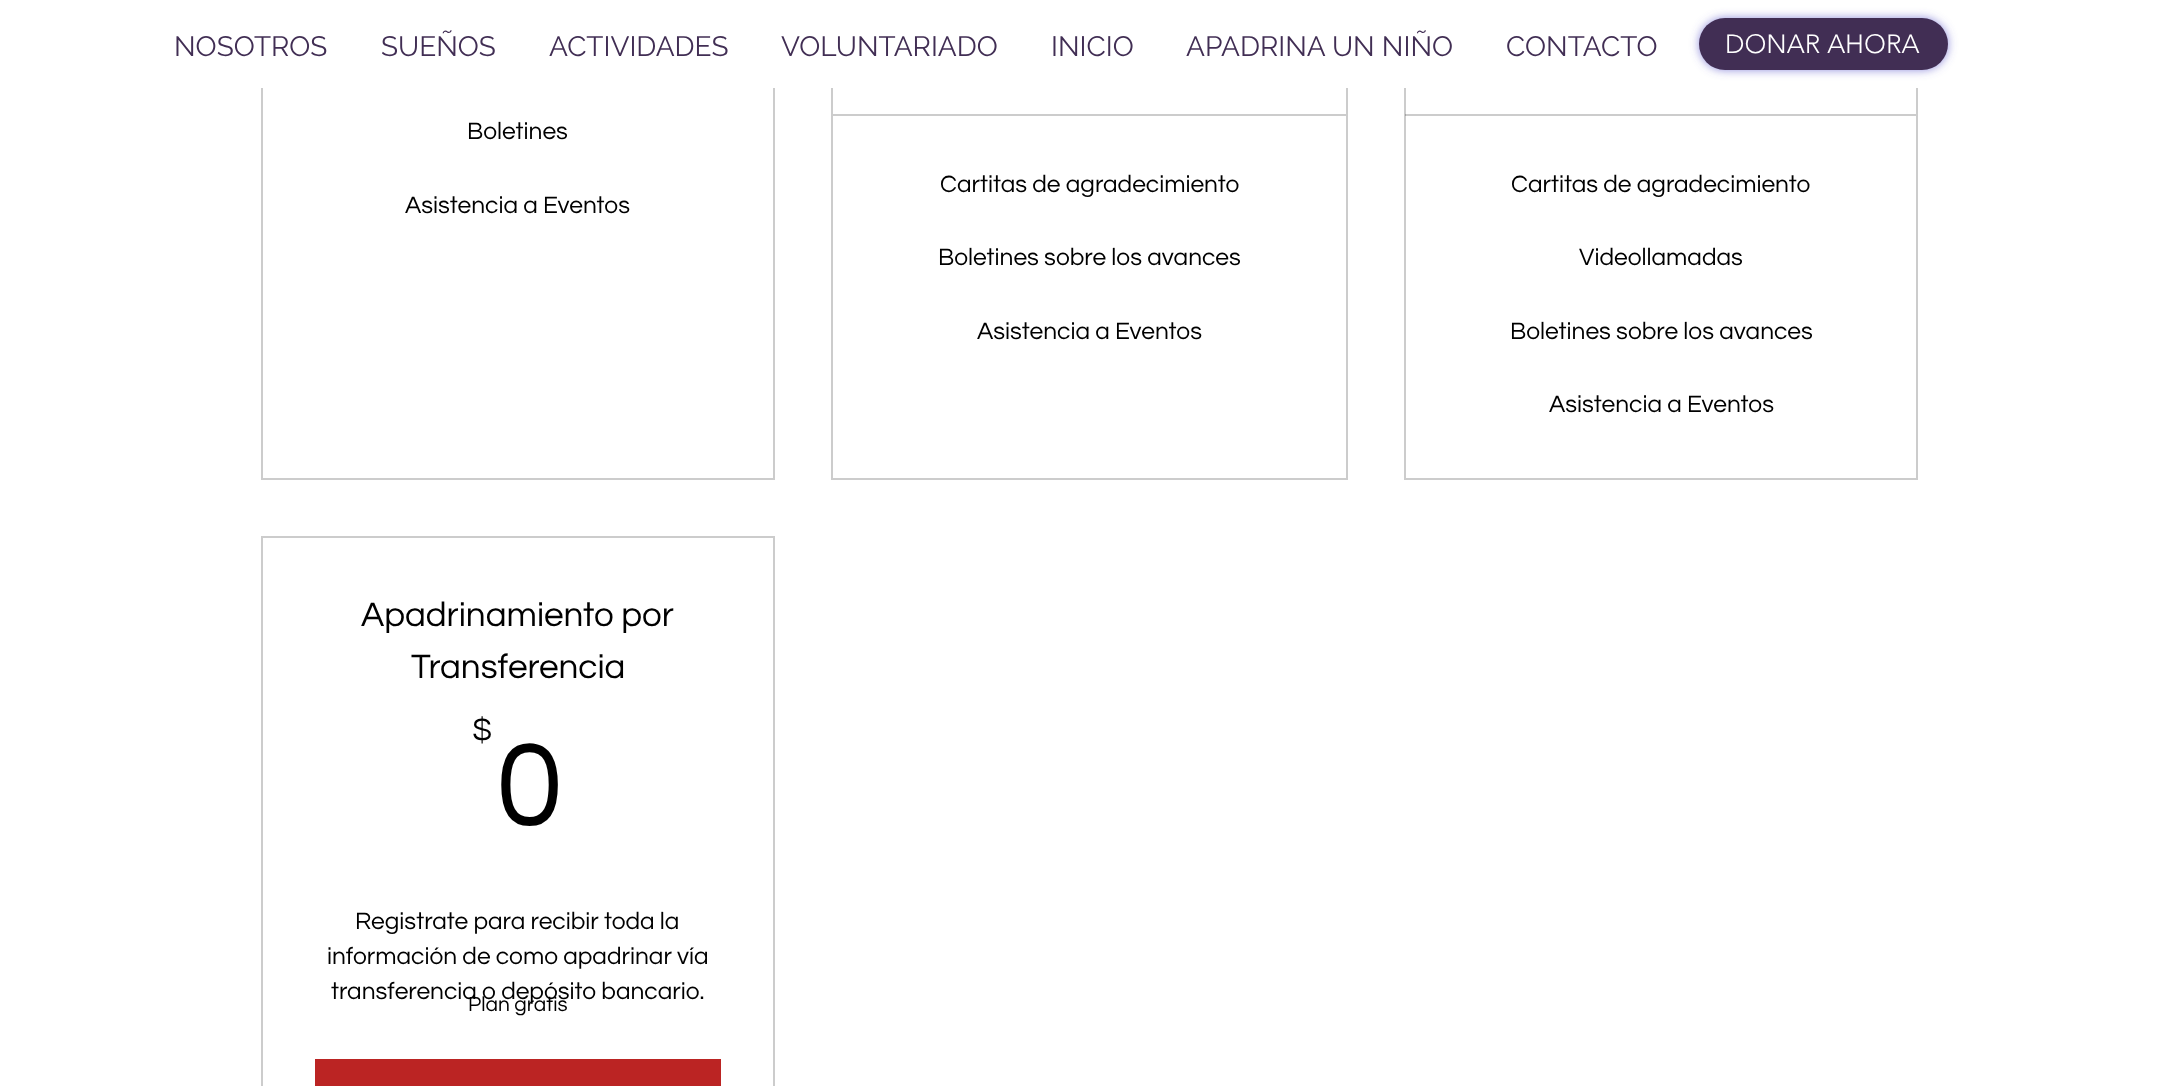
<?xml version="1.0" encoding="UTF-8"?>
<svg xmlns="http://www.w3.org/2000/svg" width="2178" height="1086">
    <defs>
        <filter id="blur1" x="-50%" y="-200%" width="200%" height="500%"><feGaussianBlur stdDeviation="5"/></filter>
    </defs>
    <rect width="100%" height="100%" fill="#FFFFFF"/>
    <rect x="262" y="-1" width="512" height="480" fill="none" stroke="#CCCCCC" stroke-width="2"/>
    <rect x="832" y="-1" width="515" height="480" fill="none" stroke="#CCCCCC" stroke-width="2"/>
    <rect x="1405" y="-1" width="512" height="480" fill="none" stroke="#CCCCCC" stroke-width="2"/>
    <rect x="261" y="0" width="1657" height="88" fill="#FFFFFF"/>
    <text x="174" y="56" font-family="Raleway" font-size="28" fill="#412E54">NOSOTROS</text>
    <text x="381" y="56" font-family="Raleway" font-size="28" fill="#412E54">SUEÑOS</text>
    <text x="549" y="56" font-family="Raleway" font-size="28" fill="#412E54">ACTIVIDADES</text>
    <text x="781" y="56" font-family="Raleway" font-size="28" fill="#412E54">VOLUNTARIADO</text>
    <text x="1051" y="56" font-family="Raleway" font-size="28" fill="#412E54">INICIO</text>
    <text x="1186" y="56" font-family="Raleway" font-size="28" fill="#412E54">APADRINA UN NIÑO</text>
    <text x="1506" y="56" font-family="Raleway" font-size="28" fill="#412E54">CONTACTO</text>
    <rect x="1699" y="18" width="249" height="52" rx="26" fill="#5F5BCD" fill-opacity="0.7" filter="url(#blur1)"/>
    <rect x="1699" y="18" width="249" height="52" rx="26" fill="#412E54"/>
    <text x="1725" y="53" font-family="'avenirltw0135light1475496'" font-size="26.25" font-weight="300" fill="#FFFFFF">DONAR AHORA</text>
    <text x="467" y="139" font-family="Questrial" font-size="24.5" fill="#000000">Boletines</text>
    <text x="405" y="213" font-family="Questrial" font-size="24.5" fill="#000000">Asistencia a Eventos</text>
    <rect x="833" y="114" width="513" height="2" fill="#CCCCCC"/>
    <text x="940" y="192" font-family="Questrial" font-size="24.5" fill="#000000">Cartitas de agradecimiento</text>
    <text x="938" y="265" font-family="Questrial" font-size="24.5" fill="#000000">Boletines sobre los avances</text>
    <text x="977" y="339" font-family="Questrial" font-size="24.5" fill="#000000">Asistencia a Eventos</text>
    <rect x="1405" y="114" width="511" height="2" fill="#000000" fill-opacity="0.2"/>
    <text x="1511" y="192" font-family="Questrial" font-size="24.5" fill="#000000">Cartitas de agradecimiento</text>
    <text x="1579" y="265" font-family="Questrial" font-size="24.5" fill="#000000">Videollamadas</text>
    <text x="1510" y="339" font-family="Questrial" font-size="24.5" fill="#000000">Boletines sobre los avances</text>
    <text x="1549" y="412" font-family="Questrial" font-size="24.5" fill="#000000">Asistencia a Eventos</text>
    <rect x="262" y="537" width="512" height="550" fill="none" stroke="#CCCCCC" stroke-width="2"/>
    <text x="361" y="626" font-family="Questrial" font-size="35" fill="#000000">Apadrinamiento por</text>
    <text x="411" y="678" font-family="Questrial" font-size="35" fill="#000000">Transferencia</text>
    <text x="472" y="740" font-family="Questrial" font-size="32" fill="#000000">$</text>
    <text x="496" y="825" font-family="Questrial" font-size="122" fill="#000000">0</text>
    <text x="355" y="929" font-family="Questrial" font-size="24.5" fill="#000000">Registrate para recibir toda la</text>
    <text x="327" y="964" font-family="Questrial" font-size="24.5" fill="#000000">información de como apadrinar vía</text>
    <text x="331" y="999" font-family="Questrial" font-size="24.5" fill="#000000">transferencia o depósito bancario.</text>
    <text x="468" y="1011" font-family="Questrial" font-size="21" fill="#000000">Plan gratis</text>
    <rect x="315" y="1059" width="406" height="27" fill="#BB2423"/>
</svg>
